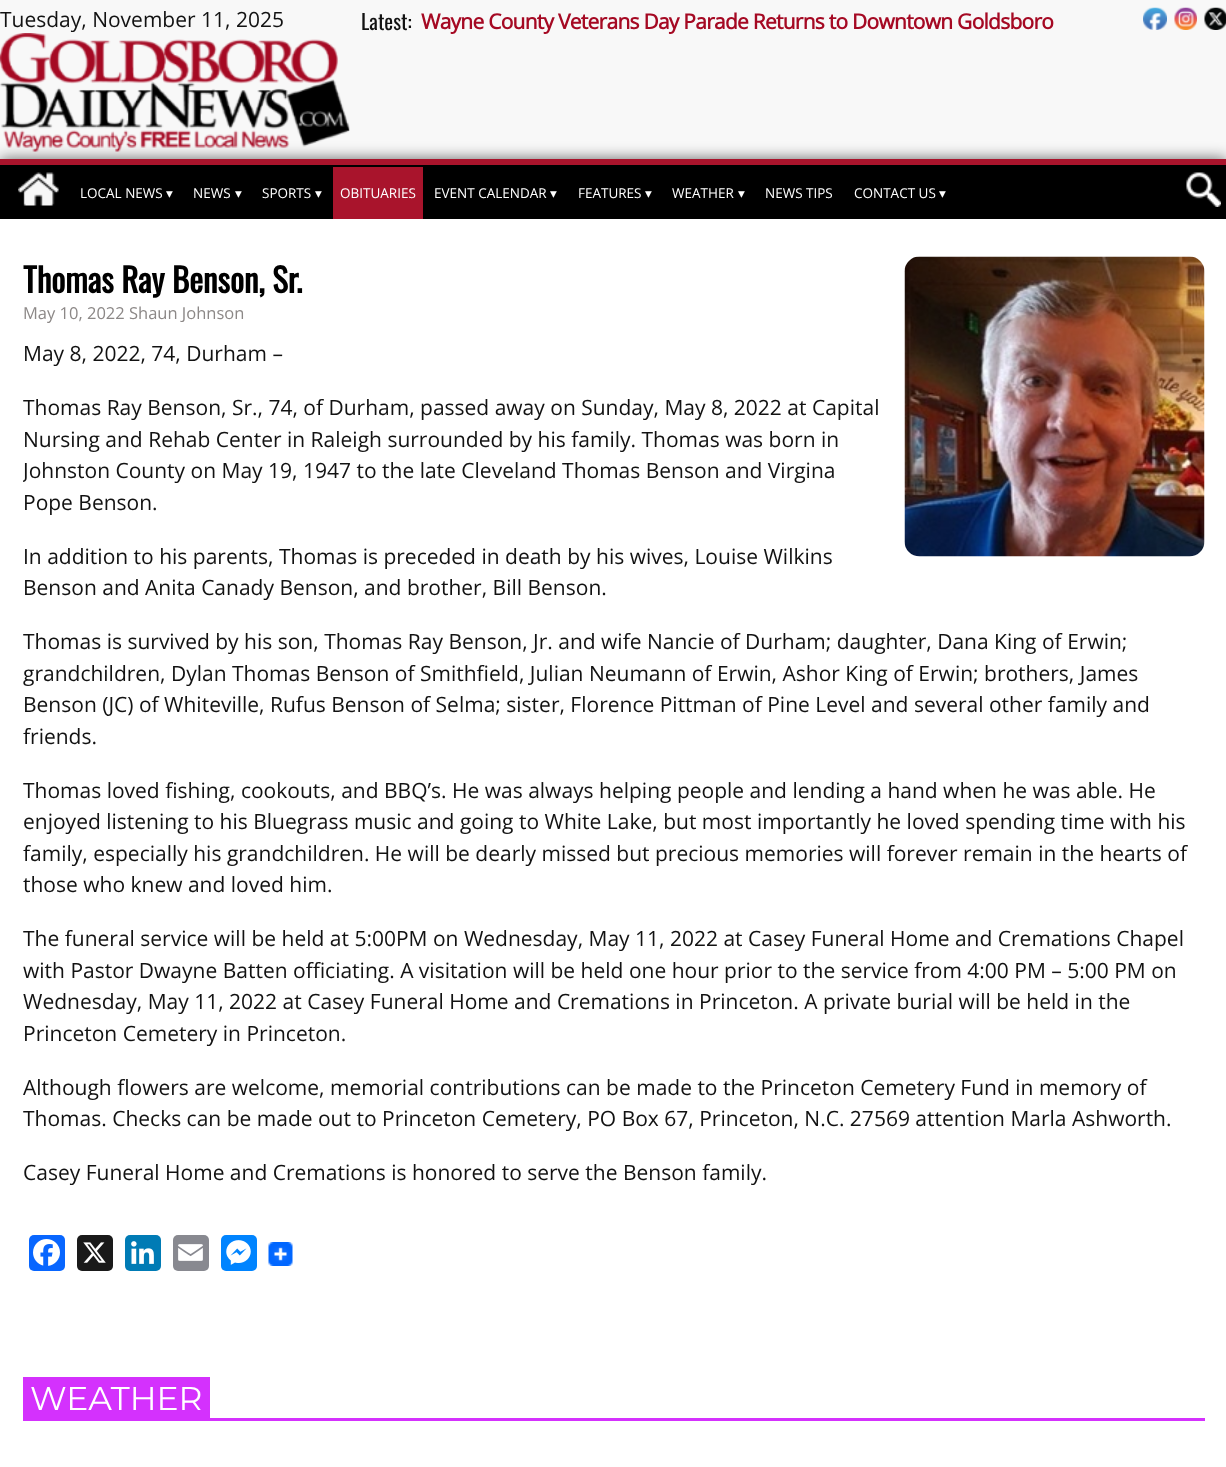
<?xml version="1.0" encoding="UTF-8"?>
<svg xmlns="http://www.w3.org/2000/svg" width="1226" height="1467">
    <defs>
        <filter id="blur1" x="-50%" y="-200%" width="200%" height="500%"><feGaussianBlur stdDeviation="7.5"/></filter>
        <clipPath id="clip1"><rect x="23" y="257" width="1182" height="1075"/></clipPath>
    </defs>
    <rect width="100%" height="100%" fill="#F8F8F8"/>
    <text x="0" y="27" font-family="Open Sans" font-size="21" fill="#121212">Tuesday, November 11, 2025</text>
    <rect x="0" y="159" width="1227" height="60" fill="#000000" fill-opacity="0.6" filter="url(#blur1)"/>
    <image x="0" y="33" width="350" height="119" href="img_01.png"/>
    <text x="361" y="30" font-family="Oswald" font-size="21" fill="#121212">Latest:</text>
    <text x="421" y="29" font-family="Open Sans" font-size="21" font-weight="700" letter-spacing="-0.75" fill="#A50923">Wayne County Veterans Day Parade Returns to Downtown Goldsboro</text>
    <image x="1143" y="7" width="24" height="23" href="img_02.png"/>
    <image x="1174" y="7" width="23" height="23" href="img_03.png"/>
    <image x="1204" y="7" width="22" height="23" href="img_04.png"/>
    <rect x="0" y="165" width="1226" height="54" fill="#000000"/>
    <rect x="0" y="159" width="1226" height="6" fill="#A9142C"/>
    <image x="18" y="172" width="41" height="34" href="img_05.png"/>
    <text x="80" y="198" font-family="Open Sans" font-size="13.5" fill="#FFFFFF">LOCAL NEWS</text>
    <text x="166" y="198" font-family="DejaVu Sans" font-size="13.5" fill="#FFFFFF">▾</text>
    <text x="193" y="198" font-family="Open Sans" font-size="13.5" fill="#FFFFFF">NEWS</text>
    <text x="235" y="198" font-family="DejaVu Sans" font-size="13.5" fill="#FFFFFF">▾</text>
    <text x="262" y="198" font-family="Open Sans" font-size="13.5" fill="#FFFFFF">SPORTS</text>
    <text x="315" y="198" font-family="DejaVu Sans" font-size="13.5" fill="#FFFFFF">▾</text>
    <rect x="333" y="167" width="90" height="52" fill="#A9142C"/>
    <text x="340" y="198" font-family="Open Sans" font-size="13.5" fill="#FFFFFF">OBITUARIES</text>
    <text x="434" y="198" font-family="Open Sans" font-size="13.5" fill="#FFFFFF">EVENT CALENDAR</text>
    <text x="550" y="198" font-family="DejaVu Sans" font-size="13.5" fill="#FFFFFF">▾</text>
    <text x="578" y="198" font-family="Open Sans" font-size="13.5" fill="#FFFFFF">FEATURES</text>
    <text x="645" y="198" font-family="DejaVu Sans" font-size="13.5" fill="#FFFFFF">▾</text>
    <text x="672" y="198" font-family="Open Sans" font-size="13.5" fill="#FFFFFF">WEATHER</text>
    <text x="738" y="198" font-family="DejaVu Sans" font-size="13.5" fill="#FFFFFF">▾</text>
    <text x="765" y="198" font-family="Open Sans" font-size="13.5" fill="#FFFFFF">NEWS TIPS</text>
    <text x="854" y="198" font-family="Open Sans" font-size="13.5" fill="#FFFFFF">CONTACT US</text>
    <text x="939" y="198" font-family="DejaVu Sans" font-size="13.5" fill="#FFFFFF">▾</text>
    <image x="1186" y="172" width="35" height="35" href="img_06.png"/>
    <rect x="0" y="219" width="1226" height="1248" fill="#FFFFFF"/>
    <text x="23" y="293" font-family="Oswald" font-size="33" font-weight="700" fill="#000000">Thomas Ray Benson, Sr.</text>
    <text x="23" y="319" font-family="Open Sans" font-size="16.5" fill="#8C8887">May 10, 2022 Shaun Johnson</text>
    <image x="904" y="256" width="301" height="301" href="img_07.png"/>
    <text x="23" y="361" font-family="Open Sans" font-size="21" fill="#121212">May 8, 2022, 74, Durham –</text>
    <text font-family="Open Sans" font-size="21" fill="#121212">
        <tspan x="23" y="415">Thomas Ray Benson, Sr., 74, of Durham, passed away on Sunday, May 8, 2022 at Capital</tspan>
        <tspan x="23" y="447">Nursing and Rehab Center in Raleigh surrounded by his family. Thomas was born in</tspan>
    </text>
    <g clip-path="url(#clip1)">
        <text x="23" y="478" font-family="Open Sans" font-size="21" fill="#121212">Johnston County on May 19, 1947 to the late Cleveland Thomas Benson and Virgina</text>
    </g>
    <text x="23" y="510" font-family="Open Sans" font-size="21" fill="#121212">Pope Benson.</text>
    <text font-family="Open Sans" font-size="21" fill="#121212">
        <tspan x="23" y="564">In addition to his parents, Thomas is preceded in death by his wives, Louise Wilkins</tspan>
        <tspan x="23" y="595">Benson and Anita Canady Benson, and brother, Bill Benson.</tspan>
    </text>
    <text font-family="Open Sans" font-size="21" fill="#121212">
        <tspan x="23" y="649">Thomas is survived by his son, Thomas Ray Benson, Jr. and wife Nancie of Durham; daughter, Dana King of Erwin;</tspan>
        <tspan x="23" y="681">grandchildren, Dylan Thomas Benson of Smithfield, Julian Neumann of Erwin, Ashor King of Erwin; brothers, James</tspan>
        <tspan x="23" y="712">Benson (JC) of Whiteville, Rufus Benson of Selma; sister, Florence Pittman of Pine Level and several other family and</tspan>
        <tspan x="23" y="744">friends.</tspan>
    </text>
    <text font-family="Open Sans" font-size="21" fill="#121212">
        <tspan x="23" y="798">Thomas loved fishing, cookouts, and BBQ’s. He was always helping people and lending a hand when he was able. He</tspan>
        <tspan x="23" y="829">enjoyed listening to his Bluegrass music and going to White Lake, but most importantly he loved spending time with his</tspan>
        <tspan x="23" y="861">family, especially his grandchildren. He will be dearly missed but precious memories will forever remain in the hearts of</tspan>
        <tspan x="23" y="892">those who knew and loved him.</tspan>
    </text>
    <text font-family="Open Sans" font-size="21" fill="#121212">
        <tspan x="23" y="946">The funeral service will be held at 5:00PM on Wednesday, May 11, 2022 at Casey Funeral Home and Cremations Chapel</tspan>
        <tspan x="23" y="978">with Pastor Dwayne Batten officiating. A visitation will be held one hour prior to the service from 4:00 PM – 5:00 PM on</tspan>
        <tspan x="23" y="1009">Wednesday, May 11, 2022 at Casey Funeral Home and Cremations in Princeton. A private burial will be held in the</tspan>
        <tspan x="23" y="1041">Princeton Cemetery in Princeton.</tspan>
    </text>
    <text font-family="Open Sans" font-size="21" fill="#121212">
        <tspan x="23" y="1095">Although flowers are welcome, memorial contributions can be made to the Princeton Cemetery Fund in memory of</tspan>
        <tspan x="23" y="1126">Thomas. Checks can be made out to Princeton Cemetery, PO Box 67, Princeton, N.C. 27569 attention Marla Ashworth.</tspan>
    </text>
    <text x="23" y="1180" font-family="Open Sans" font-size="21" fill="#121212">Casey Funeral Home and Cremations is honored to serve the Benson family.</text>
    <rect x="29" y="1235" width="36" height="36" rx="5" fill="#0866FF"/>
    <image x="33" y="1239" width="27" height="27" href="img_08.png"/>
    <rect x="77" y="1235" width="36" height="36" rx="5" fill="#1A1A1A"/>
    <image x="83" y="1242" width="23" height="21" href="img_09.png"/>
    <rect x="125" y="1235" width="36" height="36" rx="5" fill="#007BB5"/>
    <image x="131" y="1241" width="23" height="23" href="img_10.png"/>
    <rect x="173" y="1235" width="36" height="36" rx="5" fill="#888990"/>
    <image x="178" y="1244" width="25" height="17" href="img_11.png"/>
    <rect x="221" y="1235" width="36" height="36" rx="5" fill="#0084FF"/>
    <image x="226" y="1240" width="25" height="25" href="img_12.png"/>
    <image x="268" y="1242" width="25" height="24" href="img_13.png"/>
    <rect x="23" y="1418" width="1182" height="3" fill="#D431FD"/>
    <rect x="23" y="1377" width="187" height="41" fill="#D431FD"/>
    <text x="30" y="1410" font-family="Montserrat" font-size="33" font-weight="100" fill="#FFFFFF">WEATHER</text>
</svg>
